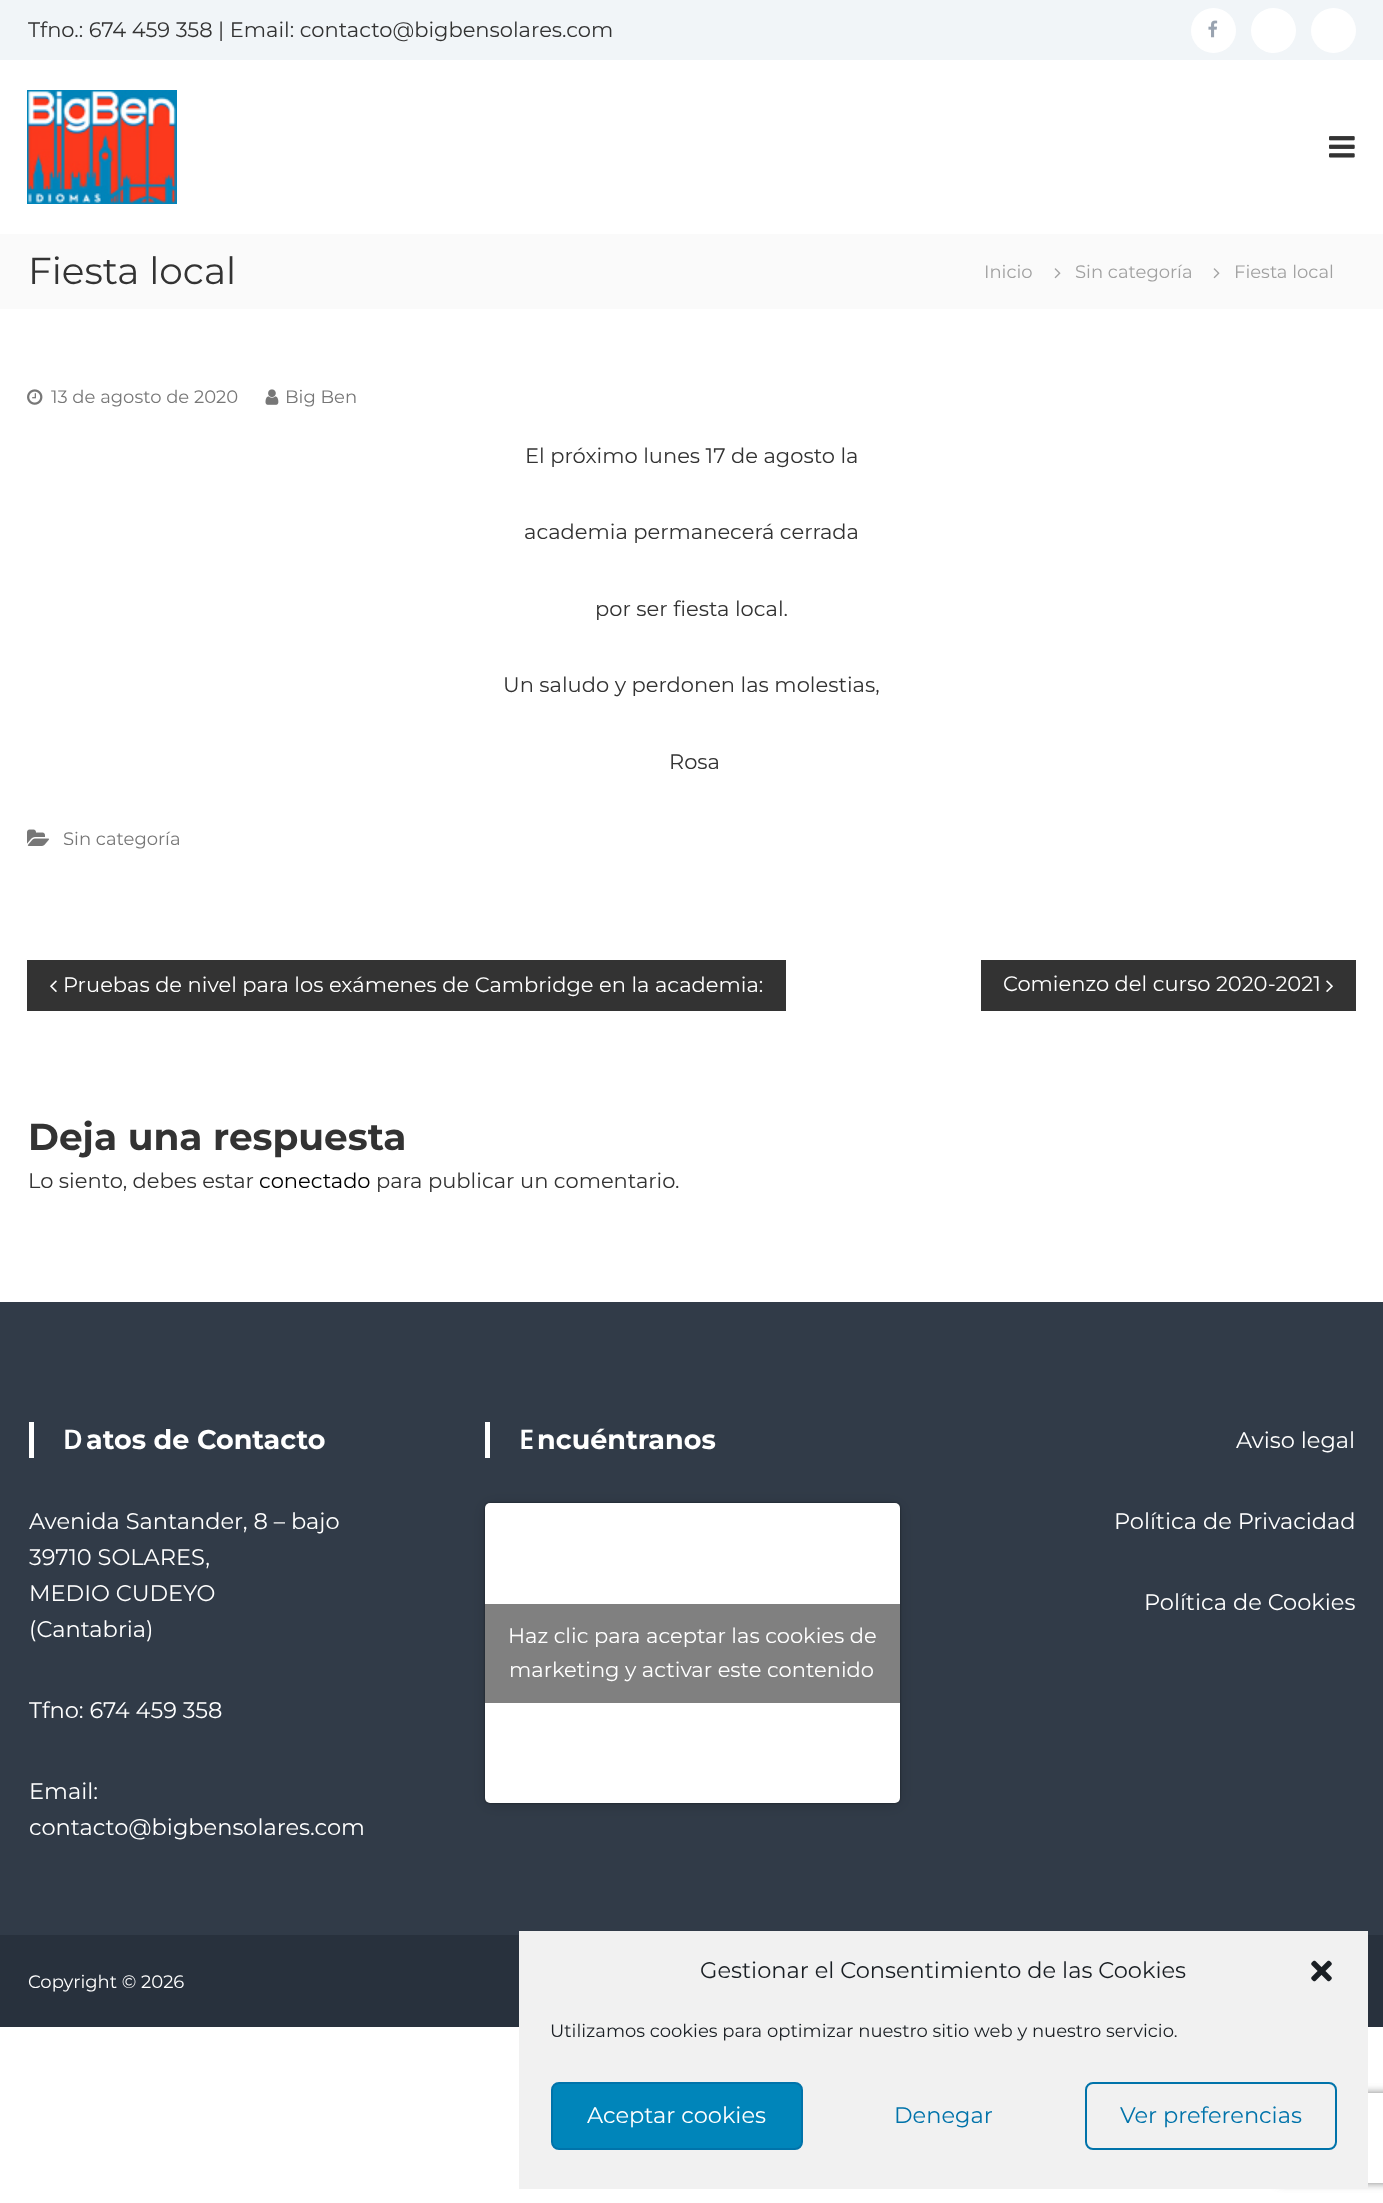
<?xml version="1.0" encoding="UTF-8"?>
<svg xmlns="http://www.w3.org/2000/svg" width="1383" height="2203">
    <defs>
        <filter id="blur1" x="-50%" y="-200%" width="200%" height="500%"><feGaussianBlur stdDeviation="7.5"/></filter>
        <filter id="blur2" x="-50%" y="-200%" width="200%" height="500%"><feGaussianBlur stdDeviation="1"/></filter>
        <clipPath id="clip1"><path d="M 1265 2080 H 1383 V 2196 H 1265 Z M 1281 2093 H 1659 C 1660.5 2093 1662 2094.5 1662 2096 V 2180 C 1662 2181.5 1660.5 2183 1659 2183 H 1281 C 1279.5 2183 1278 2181.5 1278 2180 V 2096 C 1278 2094.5 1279.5 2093 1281 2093 Z" clip-rule="evenodd"/></clipPath>
        <filter id="blur3" x="-50%" y="-200%" width="200%" height="500%"><feGaussianBlur stdDeviation="4"/></filter>
    </defs>
    <rect width="100%" height="100%" fill="#FFFFFF"/>
    <rect x="0" y="0" width="1383" height="60" fill="#F1F5F8"/>
    <text x="28" y="37" font-family="Montserrat" font-size="21" fill="#333333">Tfno.: 674 459 358 | Email: contacto@bigbensolares.com</text>
    <circle cx="1213.5" cy="30.5" r="22.5" fill="#FFFFFF"/>
    <image x="1208" y="20" width="10" height="18" href="img_01.png"/>
    <circle cx="1273.5" cy="30.5" r="22.5" fill="#FFFFFF"/>
    <circle cx="1333.5" cy="30.5" r="22.5" fill="#FFFFFF"/>
    <image x="27" y="90" width="150" height="114" href="img_02.png"/>
    <image x="1329" y="136" width="26" height="22" href="img_03.png"/>
    <rect x="0" y="234" width="1383" height="75" fill="#FAFAFA"/>
    <text x="28" y="284" font-family="Montserrat" font-size="37.5" fill="#333333">Fiesta local</text>
    <text x="984" y="278" font-family="Montserrat" font-size="18" fill="#A1A1A1">Inicio</text>
    <image x="1054" y="268" width="7" height="11" href="img_04.png"/>
    <text x="1075" y="278" font-family="Montserrat" font-size="18" fill="#A1A1A1">Sin categoría</text>
    <image x="1213" y="268" width="7" height="11" href="img_04.png"/>
    <text x="1234" y="278" font-family="Montserrat" font-size="18" fill="#A1A1A1">Fiesta local</text>
    <image x="27" y="389" width="16" height="16" href="img_05.png"/>
    <text x="51" y="403" font-family="Montserrat" font-size="18" fill="#777777">13 de agosto de 2020</text>
    <image x="265" y="389" width="14" height="16" href="img_06.png"/>
    <text x="285" y="403" font-family="Montserrat" font-size="18" fill="#777777">Big Ben</text>
    <text x="525" y="463" font-family="Montserrat" font-size="21" fill="#333333">El próximo lunes 17 de agosto la</text>
    <text x="524" y="539" font-family="Montserrat" font-size="21" fill="#333333">academia permanecerá cerrada</text>
    <text x="595" y="616" font-family="Montserrat" font-size="21" fill="#333333">por ser fiesta local.</text>
    <text x="503" y="692" font-family="Montserrat" font-size="21" fill="#333333">Un saludo y perdonen las molestias,</text>
    <text x="669" y="769" font-family="Montserrat" font-size="21" fill="#333333">Rosa</text>
    <image x="27" y="829" width="22" height="17" href="img_07.png"/>
    <text x="63" y="845" font-family="Montserrat" font-size="18" fill="#777777">Sin categoría</text>
    <rect x="27" y="960" width="759" height="51" fill="#333333"/>
    <image x="50" y="980" width="7" height="12" href="img_08.png"/>
    <text x="63" y="992" font-family="Montserrat" font-size="21" fill="#FFFFFF">Pruebas de nivel para los exámenes de Cambridge en la academia:</text>
    <rect x="981" y="960" width="375" height="51" fill="#333333"/>
    <text x="1003" y="991" font-family="Montserrat" font-size="21" fill="#FFFFFF">Comienzo del curso 2020-2021</text>
    <image x="1326" y="980" width="7" height="12" href="img_09.png"/>
    <text x="28" y="1150" font-family="Montserrat" font-size="37.5" font-weight="700" fill="#333333">Deja una respuesta</text>
    <text x="28" y="1188" font-family="Montserrat" font-size="21" fill="#333333">Lo siento, debes estar</text>
    <text x="259" y="1188" font-family="Montserrat" font-size="21" fill="#000000">conectado</text>
    <text x="376" y="1188" font-family="Montserrat" font-size="21" fill="#333333">para publicar un comentario.</text>
    <rect x="0" y="1302" width="1383" height="633" fill="#313B48"/>
    <rect x="29" y="1422" width="5" height="36" fill="#FFFFFF"/>
    <text x="63" y="1449" font-family="Noto Sans" font-size="27" font-weight="600" fill="#FFFFFF">D</text>
    <text x="86" y="1449" font-family="Montserrat" font-size="27" font-weight="700" fill="#FFFFFF">atos de Contacto</text>
    <text font-family="Montserrat" font-size="22.5" fill="#FFFFFF">
        <tspan x="29" y="1529">Avenida Santander, 8 – bajo</tspan>
        <tspan x="29" y="1565">39710 SOLARES,</tspan>
        <tspan x="29" y="1601">MEDIO CUDEYO</tspan>
        <tspan x="29" y="1637">(Cantabria)</tspan>
    </text>
    <text x="29" y="1718" font-family="Montserrat" font-size="22.5" fill="#FFFFFF">Tfno: 674 459 358</text>
    <text font-family="Montserrat" font-size="22.5" fill="#FFFFFF">
        <tspan x="29" y="1799">Email:</tspan>
        <tspan x="29" y="1835">contacto@bigbensolares.com</tspan>
    </text>
    <rect x="485" y="1422" width="5" height="36" fill="#FFFFFF"/>
    <text x="519" y="1449" font-family="Noto Sans" font-size="27" font-weight="600" fill="#FFFFFF">E</text>
    <text x="537" y="1449" font-family="Montserrat" font-size="27" font-weight="700" fill="#FFFFFF">ncuéntranos</text>
    <rect x="485" y="1505" width="415" height="300" rx="5" fill="#000000" fill-opacity="0.15" filter="url(#blur1)"/>
    <rect x="485" y="1503" width="415" height="300" rx="5" fill="#000000" fill-opacity="0.5" filter="url(#blur2)"/>
    <rect x="485" y="1503" width="415" height="300" rx="5" fill="#FFFFFF"/>
    <rect x="485" y="1604" width="415" height="99" fill="#808080"/>
    <text x="508" y="1643" font-family="Montserrat" font-size="21" fill="#FFFFFF">Haz clic para aceptar las cookies de</text>
    <text x="509" y="1677" font-family="Montserrat" font-size="21" fill="#FFFFFF">marketing y activar este contenido</text>
    <text x="1236" y="1448" font-family="Montserrat" font-size="22.5" fill="#FFFFFF">Aviso legal</text>
    <text x="1114" y="1529" font-family="Montserrat" font-size="22.5" fill="#FFFFFF">Política de Privacidad</text>
    <text x="1144" y="1610" font-family="Montserrat" font-size="22.5" fill="#FFFFFF">Política de Cookies</text>
    <rect x="0" y="1935" width="1383" height="92" fill="#28313D"/>
    <text x="28" y="1988" font-family="Montserrat" font-size="18" fill="#FFFFFF">Copyright © 2026</text>
    <g clip-path="url(#clip1)">
        <rect x="1278" y="2093" width="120" height="90" rx="3" fill="#808080" filter="url(#blur3)"/>
    </g>
    <rect x="519" y="1931" width="849" height="258" fill="#F1F1F1"/>
    <text x="700" y="1978" font-family="Montserrat" font-size="22.5" fill="#191E23">Gestionar el Consentimiento de las Cookies</text>
    <image x="1311" y="1960" width="21" height="22" href="img_10.png"/>
    <text x="550" y="2037" font-family="Montserrat" font-size="18" fill="#191E23">Utilizamos cookies para optimizar nuestro sitio web y nuestro servicio.</text>
    <rect x="552" y="2083" width="250" height="66" rx="7" fill="#0085BA" stroke="#0073AA" stroke-width="2"/>
    <text x="587" y="2123" font-family="Montserrat" font-size="22.5" fill="#FFFFFF">Aceptar cookies</text>
    <text x="894" y="2123" font-family="Montserrat" font-size="22.5" fill="#0073AA">Denegar</text>
    <rect x="1086" y="2083" width="250" height="66" rx="7" fill="none" stroke="#0073AA" stroke-width="2"/>
    <text x="1120" y="2123" font-family="Montserrat" font-size="22.5" fill="#0073AA">Ver preferencias</text>
</svg>
